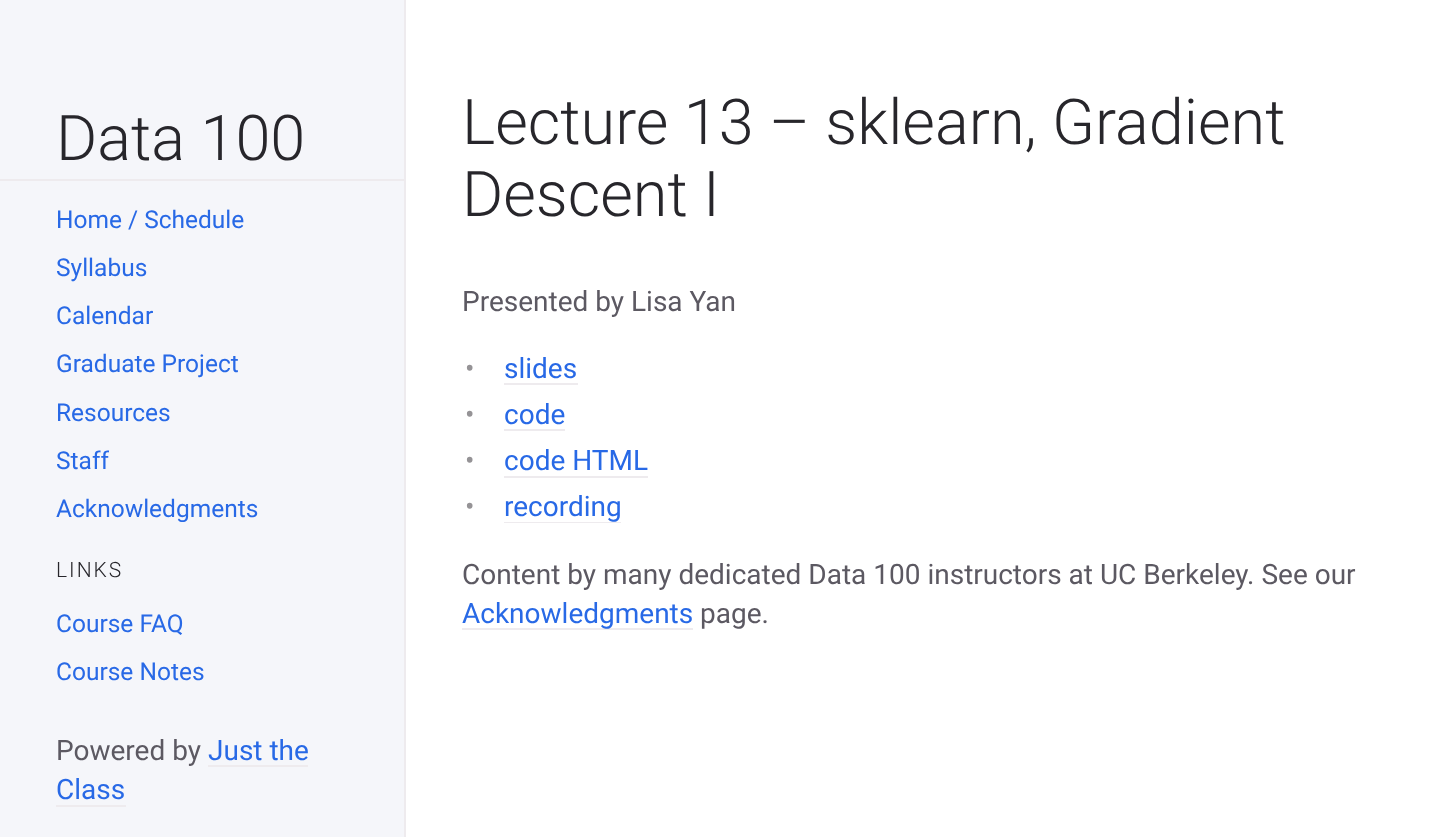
<?xml version="1.0" encoding="UTF-8"?>
<svg xmlns="http://www.w3.org/2000/svg" width="1431" height="837">
    <rect width="100%" height="100%" fill="#FFFFFF"/>
    <rect x="0" y="0" width="404" height="837" fill="#F5F6FA"/>
    <rect x="404" y="0" width="2" height="837" fill="#EEEBEE"/>
    <rect x="0" y="179" width="404" height="2" fill="#EEEBEE"/>
    <text x="56" y="160" font-family="Roboto" font-size="63" font-weight="300" fill="#27262B">Data 100</text>
    <text font-family="Roboto" font-size="24.5" fill="#2869E6">
        <tspan x="56" y="228">Home / Schedule</tspan>
        <tspan x="56" y="276">Syllabus</tspan>
        <tspan x="56" y="324">Calendar</tspan>
        <tspan x="56" y="372">Graduate Project</tspan>
    </text>
    <text font-family="Roboto" font-size="24.5" fill="#2869E6">
        <tspan x="56" y="421">Resources</tspan>
        <tspan x="56" y="469">Staff</tspan>
        <tspan x="56" y="517">Acknowledgments</tspan>
    </text>
    <text x="56" y="577" font-family="Roboto" font-size="21" font-weight="300" letter-spacing="2" fill="#27262B">LINKS</text>
    <text font-family="Roboto" font-size="24.5" fill="#2869E6">
        <tspan x="56" y="632">Course FAQ</tspan>
        <tspan x="56" y="680">Course Notes</tspan>
    </text>
    <text x="56" y="760" font-family="Roboto" font-size="28" fill="#5C5962">Powered by</text>
    <text x="208" y="760" font-family="Roboto" font-size="28" fill="#2869E6">Just the</text>
    <rect x="208" y="765" width="100" height="2" fill="#EEEBEE"/>
    <text x="56" y="799" font-family="Roboto" font-size="28" fill="#2869E6">Class</text>
    <rect x="56" y="805" width="70" height="2" fill="#EEEBEE"/>
    <text font-family="Roboto" font-size="63" font-weight="300" fill="#27262B">
        <tspan x="462" y="144">Lecture 13 – sklearn, Gradient</tspan>
        <tspan x="462" y="216">Descent I</tspan>
    </text>
    <text x="462" y="311" font-family="Roboto" font-size="28" fill="#5C5962">Presented by Lisa Yan</text>
    <text x="465" y="378" font-family="Roboto" font-size="28" fill="#959396">•</text>
    <text x="504" y="378" font-family="Roboto" font-size="28" fill="#2869E6">slides</text>
    <rect x="504" y="383" width="74" height="2" fill="#EEEBEE"/>
    <text x="465" y="424" font-family="Roboto" font-size="28" fill="#959396">•</text>
    <text x="504" y="424" font-family="Roboto" font-size="28" fill="#2869E6">code</text>
    <rect x="504" y="429" width="61" height="2" fill="#EEEBEE"/>
    <text x="465" y="470" font-family="Roboto" font-size="28" fill="#959396">•</text>
    <text x="504" y="470" font-family="Roboto" font-size="28" fill="#2869E6">code HTML</text>
    <rect x="504" y="476" width="144" height="2" fill="#EEEBEE"/>
    <text x="465" y="516" font-family="Roboto" font-size="28" fill="#959396">•</text>
    <text x="504" y="516" font-family="Roboto" font-size="28" fill="#2869E6">recording</text>
    <rect x="504" y="522" width="117" height="1" fill="#EEEBEE"/>
    <text x="462" y="584" font-family="Roboto" font-size="28" fill="#5C5962">Content by many dedicated Data 100 instructors at UC Berkeley. See our</text>
    <rect x="462" y="628" width="231" height="2" fill="#EEEBEE"/>
    <text x="462" y="623" font-family="Roboto" font-size="28" fill="#2869E6">Acknowledgments</text>
    <text x="700" y="623" font-family="Roboto" font-size="28" fill="#5C5962">page.</text>
</svg>
